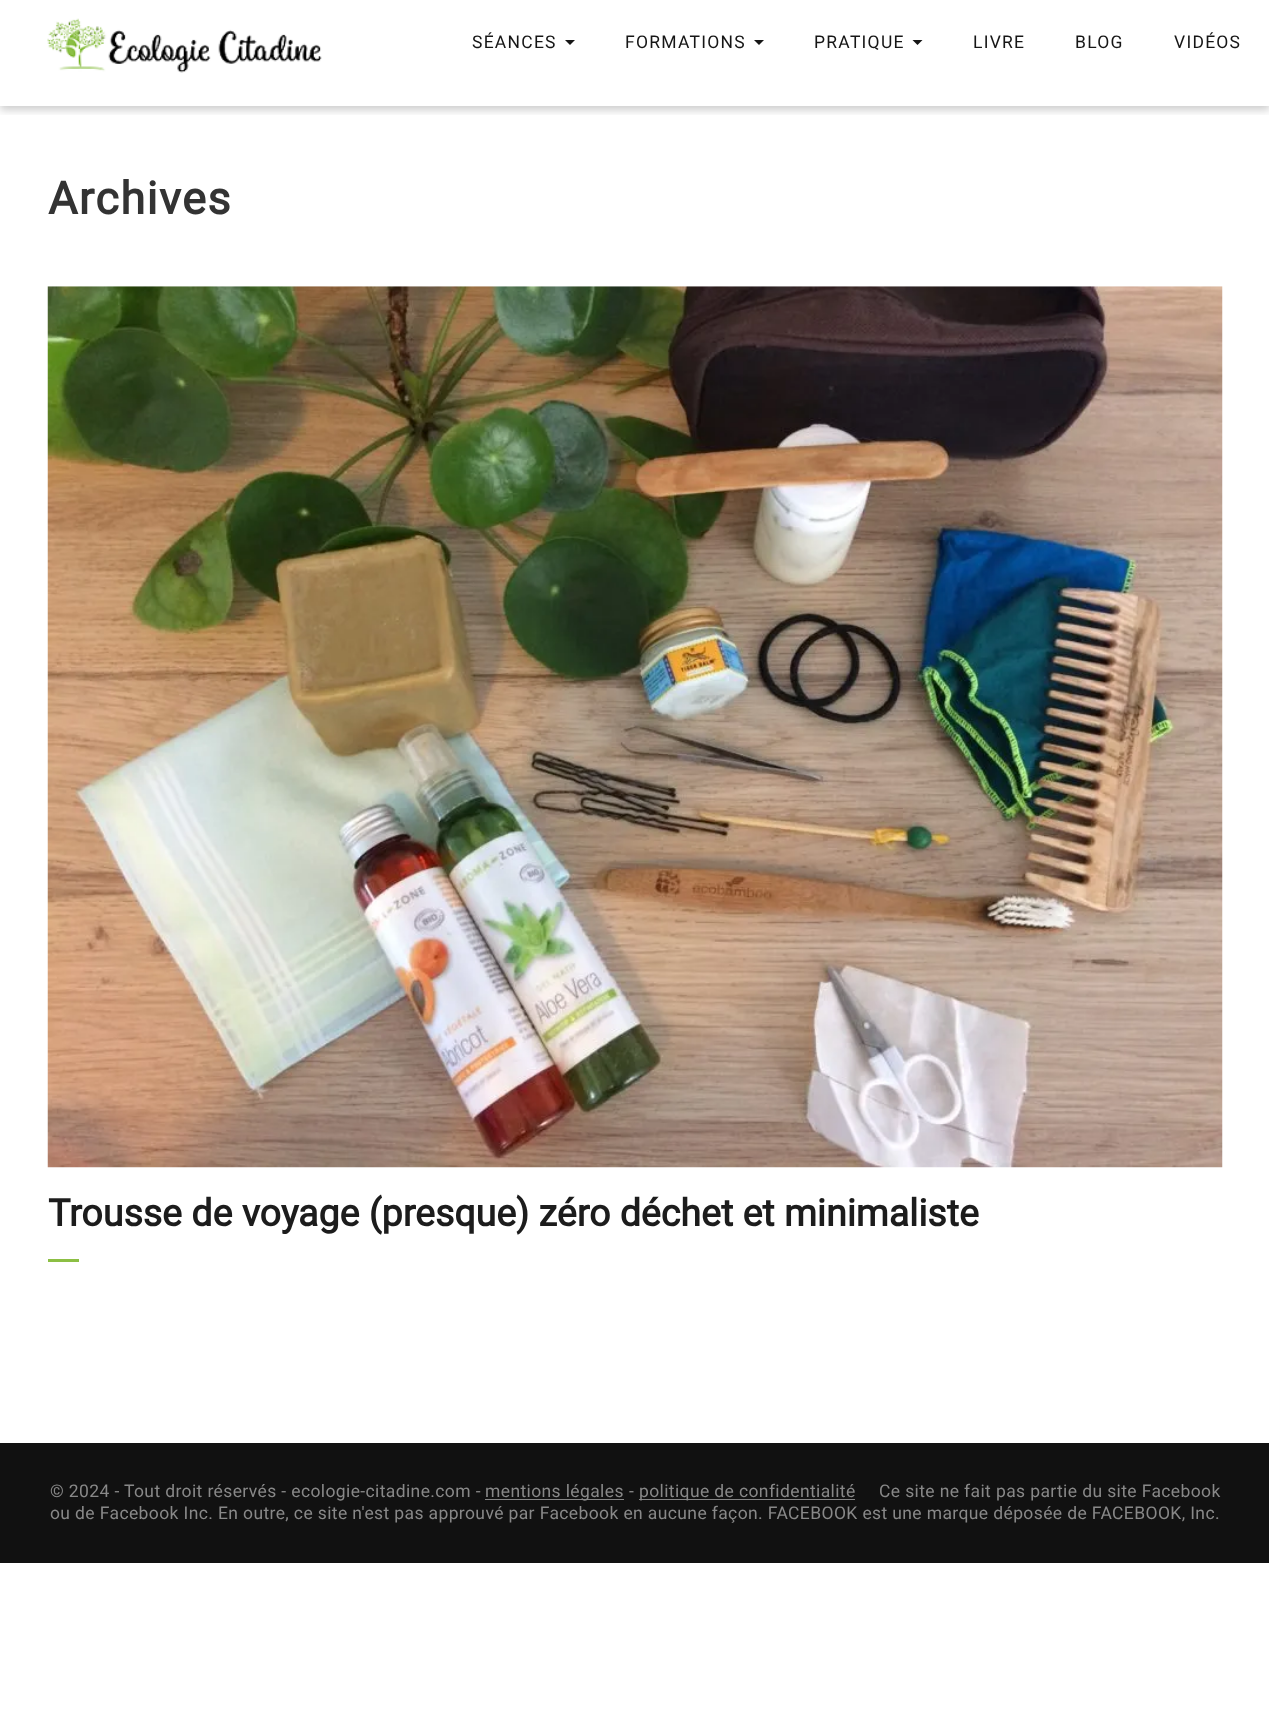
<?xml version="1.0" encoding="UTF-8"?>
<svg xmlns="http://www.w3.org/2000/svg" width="1269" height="1718">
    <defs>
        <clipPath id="clip1"><rect x="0" y="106" width="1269" height="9"/></clipPath>
        <filter id="blur1" x="-50%" y="-200%" width="200%" height="500%"><feGaussianBlur stdDeviation="4"/></filter>
    </defs>
    <rect width="100%" height="100%" fill="#FFFFFF"/>
    <g clip-path="url(#clip1)">
        <rect x="0" y="4" width="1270" height="106" fill="#000000" fill-opacity="0.2" filter="url(#blur1)"/>
    </g>
    <image x="47" y="18" width="275" height="55" href="img_01.png"/>
    <text x="472" y="48" font-family="Roboto" font-size="17.5" letter-spacing="1.25" fill="#161616">SÉANCES</text>
    <path d="M 565 40 H 575 L 570 45 Z" fill="#161616"/>
    <text x="625" y="48" font-family="Roboto" font-size="17.5" letter-spacing="1.25" fill="#161616">FORMATIONS</text>
    <path d="M 754 40 H 764 L 759 45 Z" fill="#161616"/>
    <text x="814" y="48" font-family="Roboto" font-size="17.5" letter-spacing="1.25" fill="#161616">PRATIQUE</text>
    <path d="M 912.5 40 H 922.5 L 917.5 45 Z" fill="#161616"/>
    <text x="973" y="48" font-family="Roboto" font-size="17.5" letter-spacing="1.25" fill="#161616">LIVRE</text>
    <text x="1075" y="48" font-family="Roboto" font-size="17.5" letter-spacing="1.25" fill="#161616">BLOG</text>
    <text x="1174" y="48" font-family="Roboto" font-size="17.5" letter-spacing="1.25" fill="#161616">VIDÉOS</text>
    <text x="48" y="214" font-family="Roboto" font-size="45" font-weight="700" letter-spacing="1.5" fill="#333333">Archives</text>
    <image x="47" y="286" width="1176" height="882" href="img_02.png"/>
    <text x="48" y="1226" font-family="Roboto" font-size="37.5" font-weight="700" fill="#1C1C1C">Trousse de voyage (presque) zéro déchet et minimaliste</text>
    <rect x="48" y="1259" width="31" height="3" fill="#8CBF44"/>
    <rect x="0" y="1443" width="1269" height="120" fill="#111111"/>
    <text x="50" y="1497" font-family="Roboto" font-size="17.5" letter-spacing="0.38" fill="#888888">© 2024 - Tout droit réservés - ecologie-citadine.com -</text>
    <rect x="485" y="1499" width="139" height="1" fill="#858585"/>
    <text x="485" y="1497" font-family="Roboto" font-size="17.5" letter-spacing="0.38" fill="#888888">mentions légales</text>
    <text x="629" y="1497" font-family="Roboto" font-size="17.5" letter-spacing="0.38" fill="#888888">-</text>
    <rect x="639" y="1499" width="216" height="1" fill="#858585"/>
    <text x="639" y="1497" font-family="Roboto" font-size="17.5" letter-spacing="0.38" fill="#888888">politique de confidentialité</text>
    <text x="879" y="1497" font-family="Roboto" font-size="17.5" letter-spacing="0.38" fill="#888888">Ce site ne fait pas partie du site Facebook</text>
    <text x="50" y="1519" font-family="Roboto" font-size="17.5" letter-spacing="0.38" fill="#888888">ou de Facebook Inc. En outre, ce site n'est pas approuvé par Facebook en aucune façon. FACEBOOK est une marque déposée de FACEBOOK, Inc.</text>
</svg>
